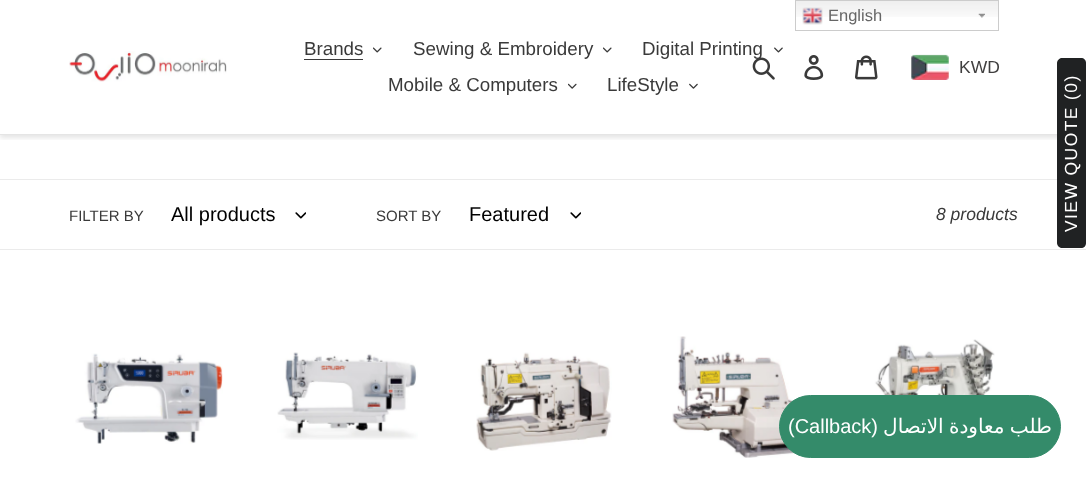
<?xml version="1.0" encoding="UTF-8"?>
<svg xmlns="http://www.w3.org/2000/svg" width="1086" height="482">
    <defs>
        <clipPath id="clip1"><rect x="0" y="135" width="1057" height="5"/></clipPath>
        <filter id="blur1" x="-50%" y="-200%" width="200%" height="500%"><feGaussianBlur stdDeviation="2.5"/></filter>
    </defs>
    <rect width="100%" height="100%" fill="#FFFFFF"/>
    <g clip-path="url(#clip1)">
        <rect x="0" y="3" width="1086" height="135" fill="#000000" fill-opacity="0.1" filter="url(#blur1)"/>
    </g>
    <image x="796" y="1" width="202" height="16" href="img_01.png"/>
    <image x="978" y="13" width="7" height="5" href="img_02.png"/>
    <rect x="795.5" y="0.5" width="203" height="30" fill="none" stroke="#CCCCCC"/>
    <image x="802" y="7" width="21" height="18" href="img_03.png"/>
    <text x="828" y="21" font-family="Liberation Sans" font-size="16.5" fill="#666666">English</text>
    <rect x="0" y="134" width="1057" height="1" fill="#E5E5E5"/>
    <image x="69" y="51" width="158" height="31" href="img_04.png"/>
    <text x="304" y="55" font-family="Liberation Sans" font-size="18.75" fill="#3A3A3A">Brands</text>
    <rect x="304" y="59" width="59" height="1" fill="#3A3A3A"/>
    <image x="373" y="47" width="9" height="6" href="img_05.png"/>
    <text x="413" y="55" font-family="Liberation Sans" font-size="18.75" fill="#3A3A3A">Sewing &amp; Embroidery</text>
    <image x="603" y="47" width="9" height="6" href="img_05.png"/>
    <text x="642" y="55" font-family="Liberation Sans" font-size="18.75" fill="#3A3A3A">Digital Printing</text>
    <image x="774" y="47" width="9" height="6" href="img_06.png"/>
    <text x="388" y="91" font-family="Liberation Sans" font-size="18.75" fill="#3A3A3A">Mobile &amp; Computers</text>
    <image x="568" y="83" width="9" height="6" href="img_07.png"/>
    <text x="607" y="91" font-family="Liberation Sans" font-size="18.75" fill="#3A3A3A">LifeStyle</text>
    <image x="689" y="83" width="9" height="6" href="img_08.png"/>
    <image x="752" y="57" width="23" height="23" href="img_09.png"/>
    <image x="804" y="55" width="20" height="25" href="img_10.png"/>
    <image x="855" y="55" width="23" height="25" href="img_11.png"/>
    <image x="911" y="54" width="38" height="26" href="img_12.png"/>
    <text x="959" y="73" font-family="Liberation Sans" font-size="17.5" fill="#403F3F">KWD</text>
    <rect x="0" y="179" width="1057" height="1" fill="#EBEBEB"/>
    <rect x="0" y="249" width="1086" height="1" fill="#EBEBEB"/>
    <text x="69" y="221" font-family="Liberation Sans" font-size="15" fill="#3A3A3A">FILTER BY</text>
    <text x="171" y="221" font-family="Liberation Sans" font-size="20" fill="#000000">All products</text>
    <image x="295" y="212" width="11" height="7" href="img_13.png"/>
    <text x="376" y="221" font-family="Liberation Sans" font-size="15" fill="#3A3A3A">SORT BY</text>
    <text x="469" y="221" font-family="Liberation Sans" font-size="20" fill="#000000">Featured</text>
    <image x="570" y="212" width="11" height="7" href="img_13.png"/>
    <text x="936" y="220" font-family="Liberation Sans" font-size="17.5" font-style="italic" fill="#3A3A3A">8 products</text>
    <image x="75" y="353" width="148" height="91" href="img_14.png"/>
    <image x="277" y="352" width="141" height="88" href="img_15.png"/>
    <image x="476" y="352" width="136" height="99" href="img_16.png"/>
    <image x="672" y="336" width="137" height="122" href="img_17.png"/>
    <image x="869" y="339" width="136" height="56" href="img_18.png"/>
    <path d="M 1057 243 V 63 C 1057 60 1060 58 1062 58 H 1081 C 1084 58 1086 60 1086 63 V 243 C 1086 246 1084 248 1081 248 H 1062 C 1060 248 1057 246 1057 243 Z" fill="#202223"/>
    <text x="1077" y="232" transform="rotate(-90 1077 232)" font-family="Liberation Sans" font-size="17.5" letter-spacing="1.4" fill="#FFFFFF">VIEW QUOTE (0)</text>
    <rect x="779.5" y="395.5" width="281" height="62" rx="31" fill="#348B6A" stroke="#348B6A"/>
    <text x="788" y="433" font-family="Liberation Sans" font-size="20" fill="#FFFFFF">(Callback)</text>
    <text x="1052" y="433" word-spacing="-1" font-family="DejaVu Sans" font-size="20" direction="rtl" fill="#FFFFFF">طلب معاودة الاتصال</text>
</svg>
